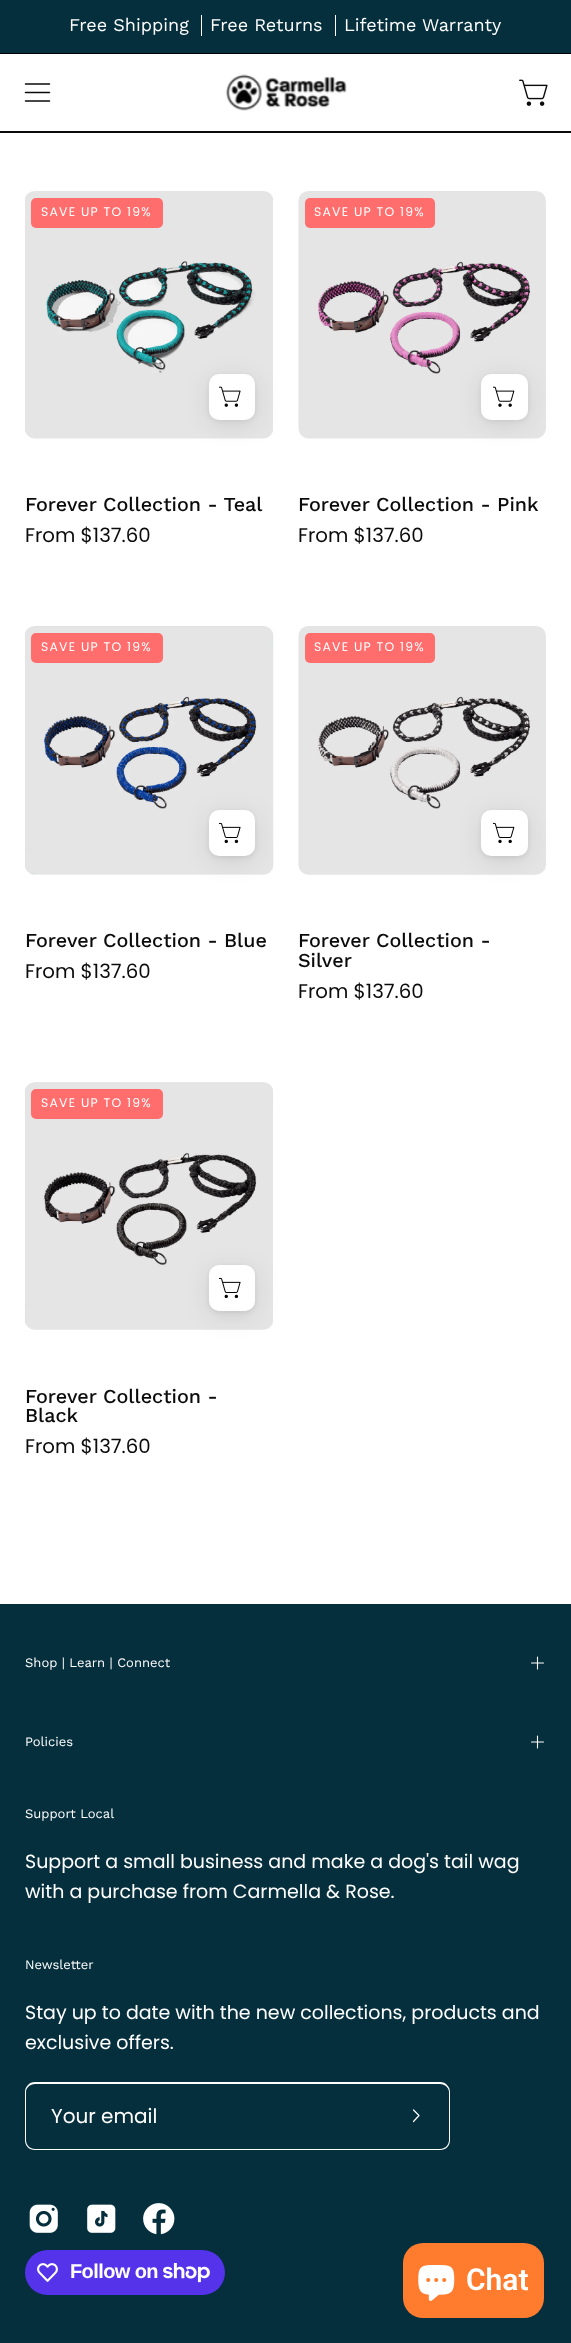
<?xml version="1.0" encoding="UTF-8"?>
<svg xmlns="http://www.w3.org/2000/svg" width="571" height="2343">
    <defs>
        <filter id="blur1" x="-50%" y="-200%" width="200%" height="500%"><feGaussianBlur stdDeviation="2"/></filter>
        <filter id="blur2" x="-50%" y="-200%" width="200%" height="500%"><feGaussianBlur stdDeviation="12.5"/></filter>
    </defs>
    <rect width="100%" height="100%" fill="#FFFFFF"/>
    <rect x="0" y="0" width="571" height="53" fill="#052F3D"/>
    <rect x="0" y="53" width="571" height="1" fill="#000000"/>
    <text x="69" y="31" font-family="Work Sans" font-size="18" fill="#FFFFFF">Free Shipping</text>
    <rect x="201" y="15" width="1" height="21" fill="#FFFFFF"/>
    <text x="210" y="31" font-family="Work Sans" font-size="18" fill="#FFFFFF">Free Returns</text>
    <rect x="335" y="15" width="1" height="21" fill="#FFFFFF"/>
    <text x="344" y="31" font-family="Work Sans" font-size="18" fill="#FFFFFF">Lifetime Warranty</text>
    <path d="M 25.5 92.5 H 49.5 M 25.5 84 H 49.5 M 25.5 101 H 49.5" fill="none" stroke="#0B0B0B" stroke-width="1.5" stroke-linecap="round" stroke-linejoin="round"/>
    <image x="225" y="74" width="122" height="37" href="img_01.png"/>
    <image x="519" y="79" width="29" height="27" href="img_02.png"/>
    <rect x="0" y="131" width="571" height="2" fill="#0B0B0B"/>
    <image x="25" y="191" width="248" height="248" href="img_03.png"/>
    <rect x="31" y="198" width="132" height="30" rx="5" fill="#FF6D6D"/>
    <text x="41" y="216" font-family="Poppins" font-size="12.4" letter-spacing="1.25" fill="#FFFFFF">SAVE UP TO 19%</text>
    <rect x="209" y="375" width="46" height="46" rx="10" fill="#000000" fill-opacity="0.07" filter="url(#blur1)"/>
    <rect x="209" y="379" width="46" height="46" rx="10" fill="#000000" fill-opacity="0.1" filter="url(#blur2)"/>
    <rect x="209" y="374" width="46" height="46" rx="10" fill="#FFFFFF"/>
    <image x="219" y="386" width="22" height="21" href="img_04.png"/>
    <text x="25" y="511" font-family="Work Sans" font-size="19.75" font-weight="500" fill="#0B0B0B">Forever Collection - Teal</text>
    <text x="25" y="542" font-family="Poppins" font-size="19.75" fill="#0B0B0B">From $137.60</text>
    <image x="298" y="191" width="248" height="248" href="img_05.png"/>
    <rect x="305" y="198" width="130" height="30" rx="5" fill="#FF6D6D"/>
    <text x="314" y="216" font-family="Poppins" font-size="12.4" letter-spacing="1.25" fill="#FFFFFF">SAVE UP TO 19%</text>
    <rect x="481" y="375" width="47" height="46" rx="10" fill="#000000" fill-opacity="0.07" filter="url(#blur1)"/>
    <rect x="481" y="379" width="47" height="46" rx="10" fill="#000000" fill-opacity="0.1" filter="url(#blur2)"/>
    <rect x="481" y="374" width="47" height="46" rx="10" fill="#FFFFFF"/>
    <image x="493" y="386" width="22" height="21" href="img_06.png"/>
    <text x="298" y="511" font-family="Work Sans" font-size="19.75" font-weight="500" fill="#0B0B0B">Forever Collection - Pink</text>
    <text x="298" y="542" font-family="Poppins" font-size="19.75" fill="#0B0B0B">From $137.60</text>
    <image x="25" y="626" width="249" height="249" href="img_07.png"/>
    <rect x="31" y="633" width="132" height="30" rx="5" fill="#FF6D6D"/>
    <text x="41" y="651" font-family="Poppins" font-size="12.4" letter-spacing="1.25" fill="#FFFFFF">SAVE UP TO 19%</text>
    <rect x="209" y="811" width="46" height="47" rx="10" fill="#000000" fill-opacity="0.07" filter="url(#blur1)"/>
    <rect x="209" y="815" width="46" height="46" rx="10" fill="#000000" fill-opacity="0.1" filter="url(#blur2)"/>
    <rect x="209" y="810" width="46" height="46" rx="10" fill="#FFFFFF"/>
    <image x="219" y="822" width="22" height="22" href="img_08.png"/>
    <text x="25" y="947" font-family="Work Sans" font-size="19.75" font-weight="500" fill="#0B0B0B">Forever Collection - Blue</text>
    <text x="25" y="978" font-family="Poppins" font-size="19.75" fill="#0B0B0B">From $137.60</text>
    <image x="298" y="626" width="248" height="249" href="img_09.png"/>
    <rect x="305" y="633" width="130" height="30" rx="5" fill="#FF6D6D"/>
    <text x="314" y="651" font-family="Poppins" font-size="12.4" letter-spacing="1.25" fill="#FFFFFF">SAVE UP TO 19%</text>
    <rect x="481" y="811" width="47" height="47" rx="10" fill="#000000" fill-opacity="0.07" filter="url(#blur1)"/>
    <rect x="481" y="815" width="47" height="46" rx="10" fill="#000000" fill-opacity="0.1" filter="url(#blur2)"/>
    <rect x="481" y="810" width="47" height="46" rx="10" fill="#FFFFFF"/>
    <image x="493" y="822" width="22" height="22" href="img_10.png"/>
    <text font-family="Work Sans" font-size="19.75" font-weight="500" fill="#0B0B0B">
        <tspan x="298" y="947">Forever Collection -</tspan>
        <tspan x="298" y="967">Silver</tspan>
    </text>
    <text x="298" y="998" font-family="Poppins" font-size="19.75" fill="#0B0B0B">From $137.60</text>
    <image x="25" y="1082" width="248" height="248" href="img_11.png"/>
    <rect x="31" y="1089" width="132" height="30" rx="5" fill="#FF6D6D"/>
    <text x="41" y="1107" font-family="Poppins" font-size="12.4" letter-spacing="1.25" fill="#FFFFFF">SAVE UP TO 19%</text>
    <rect x="209" y="1266" width="46" height="47" rx="10" fill="#000000" fill-opacity="0.07" filter="url(#blur1)"/>
    <rect x="209" y="1270" width="46" height="46" rx="10" fill="#000000" fill-opacity="0.1" filter="url(#blur2)"/>
    <rect x="209" y="1265" width="46" height="46" rx="10" fill="#FFFFFF"/>
    <image x="219" y="1277" width="22" height="22" href="img_08.png"/>
    <text font-family="Work Sans" font-size="19.75" font-weight="500" fill="#0B0B0B">
        <tspan x="25" y="1403">Forever Collection -</tspan>
        <tspan x="25" y="1422">Black</tspan>
    </text>
    <text x="25" y="1453" font-family="Poppins" font-size="19.75" fill="#0B0B0B">From $137.60</text>
    <rect x="0" y="1604" width="571" height="739" fill="#052F3D"/>
    <text x="25" y="1667" font-family="Work Sans" font-size="13" fill="#FFFFFF">Shop | Learn | Connect</text>
    <path d="M 531.5 1663 H 543.5 M 537.5 1657 V 1669" fill="none" stroke="#FFFFFF" stroke-width="1.1" stroke-linecap="round" stroke-linejoin="round"/>
    <text x="25" y="1746" font-family="Work Sans" font-size="13" fill="#FFFFFF">Policies</text>
    <path d="M 531.5 1742 H 543.5 M 537.5 1736 V 1748" fill="none" stroke="#FFFFFF" stroke-width="1.1" stroke-linecap="round" stroke-linejoin="round"/>
    <text x="25" y="1818" font-family="Work Sans" font-size="13" fill="#FFFFFF">Support Local</text>
    <text font-family="Poppins" font-size="19" fill="#FFFFFF">
        <tspan x="25" y="1868">Support a small business and make a dog's tail wag</tspan>
        <tspan x="25" y="1898">with a purchase from Carmella &amp; Rose.</tspan>
    </text>
    <text x="25" y="1969" font-family="Work Sans" font-size="13" fill="#FFFFFF">Newsletter</text>
    <text font-family="Poppins" font-size="19" fill="#FFFFFF">
        <tspan x="25" y="2019">Stay up to date with the new collections, products and</tspan>
        <tspan x="25" y="2049">exclusive offers.</tspan>
    </text>
    <path d="M 35 2082 H 382 V 2150 H 35 C 29 2150 25 2146 25 2140 V 2092 C 25 2087 29 2082 35 2082 Z M 35 2084 H 382 V 2149 H 35 C 30 2149 26 2145 26 2140 V 2092 C 26 2088 30 2084 35 2084 Z" fill="#FFFFFF" fill-rule="evenodd"/>
    <text x="51" y="2123" font-family="Poppins" font-size="20" fill="#FFFFFF">Your email</text>
    <path d="M 382 2082 H 440 C 446 2082 450 2087 450 2092 V 2140 C 450 2146 446 2150 440 2150 H 382 Z M 382 2084 H 440 C 445 2084 449 2088 449 2092 V 2140 C 449 2145 445 2149 440 2149 H 382 Z" fill="#FFFFFF" fill-rule="evenodd"/>
    <path d="M 413.5 2110 L 419 2115.5 L 413.5 2121.5" fill="none" stroke="#FFFFFF" stroke-width="1.2" stroke-linecap="round" stroke-linejoin="round"/>
    <image x="29" y="2204" width="29" height="29" href="img_12.png"/>
    <image x="87" y="2204" width="29" height="29" href="img_13.png"/>
    <image x="143" y="2203" width="32" height="32" href="img_14.png"/>
    <rect x="25" y="2250" width="200" height="45" rx="22.5" fill="#5433EB"/>
    <image x="37" y="2263" width="21" height="19" href="img_15.png"/>
    <text x="70" y="2278" font-family="Liberation Sans" font-size="20" font-weight="700" letter-spacing="-0.6" fill="#FFFFFF">Follow on</text>
    <image x="163" y="2263" width="47" height="20" href="img_16.png"/>
    <rect x="403" y="2243" width="141" height="75" rx="20" fill="#FF7C2F"/>
    <image x="418" y="2265" width="37" height="36" href="img_17.png"/>
    <text x="466" y="2290" font-family="Roboto" font-size="30" font-weight="600" fill="#FFFFFF">Chat</text>
</svg>
